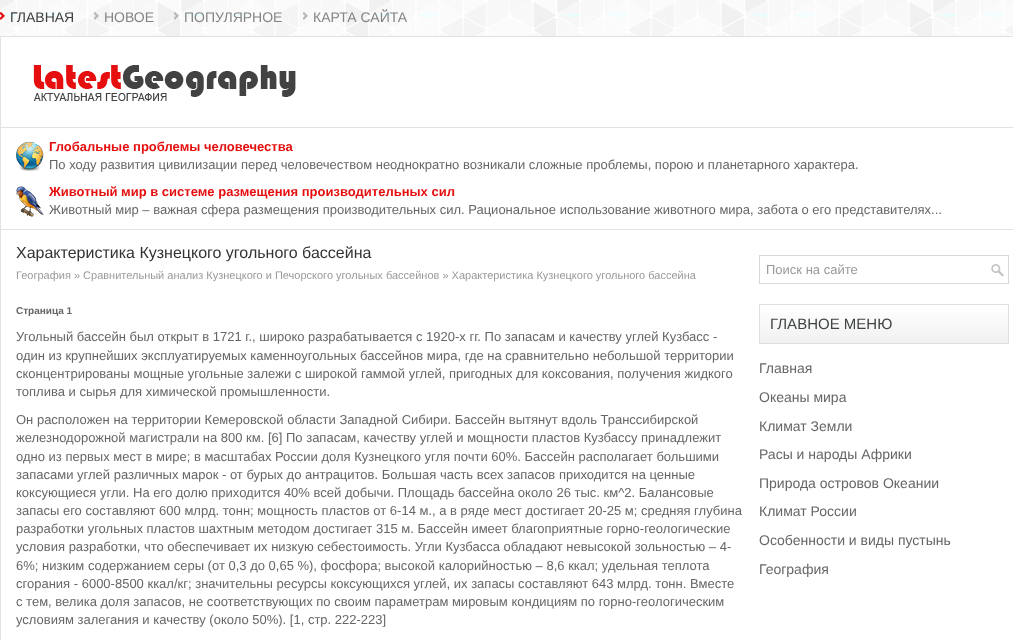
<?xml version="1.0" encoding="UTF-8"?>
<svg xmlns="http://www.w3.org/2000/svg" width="1013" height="640">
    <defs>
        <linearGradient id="g1" gradientUnits="userSpaceOnUse" x1="884" y1="305" x2="884" y2="343"><stop offset="0" stop-color="#FFFFFF"/><stop offset="1" stop-color="#F1F1F1"/></linearGradient>
    </defs>
    <rect width="100%" height="100%" fill="#FFFFFF"/>
    <image x="0" y="0" width="1013" height="36" href="img_01.png"/>
    <image x="0" y="12" width="5" height="8" href="img_02.png"/>
    <text x="10" y="22" font-family="Arimo" font-size="14" fill="#3E3E3E">ГЛАВНАЯ</text>
    <image x="94" y="12" width="5" height="8" href="img_03.png"/>
    <text x="104" y="22" font-family="Arimo" font-size="14" fill="#848484">НОВОЕ</text>
    <image x="174" y="12" width="5" height="8" href="img_04.png"/>
    <text x="184" y="22" font-family="Arimo" font-size="14" fill="#848484">ПОПУЛЯРНОЕ</text>
    <image x="303" y="12" width="5" height="8" href="img_05.png"/>
    <text x="313" y="22" font-family="Arimo" font-size="14" fill="#848484">КАРТА САЙТА</text>
    <rect x="0" y="36" width="1013" height="1" fill="#E2E2E2"/>
    <rect x="0" y="36" width="1" height="91" fill="#E2E2E2"/>
    <image x="33" y="65" width="263" height="36" href="img_06.png"/>
    <rect x="0" y="127" width="1013" height="1" fill="#E2E2E2"/>
    <rect x="0" y="127" width="1" height="102" fill="#E2E2E2"/>
    <image x="16" y="141" width="28" height="30" href="img_07.png"/>
    <text x="49" y="151" font-family="Liberation Sans" font-size="13" font-weight="700" fill="#E50F0F">Глобальные проблемы человечества</text>
    <text x="49" y="169" font-family="Liberation Sans" font-size="13" fill="#666666">По ходу развития цивилизации перед человечеством неоднократно возникали сложные проблемы, порою и планетарного характера.</text>
    <image x="16" y="186" width="28" height="31" href="img_08.png"/>
    <text x="49" y="196" font-family="Liberation Sans" font-size="13" font-weight="700" fill="#E50F0F">Животный мир в системе размещения производительных сил</text>
    <text x="49" y="214" font-family="Liberation Sans" font-size="13" fill="#666666">Животный мир – важная сфера размещения производительных сил. Рациональное использование животного мира, забота о его представителях...</text>
    <rect x="0" y="229" width="1013" height="1" fill="#E2E2E2"/>
    <rect x="0" y="229" width="1" height="411" fill="#E2E2E2"/>
    <text x="16" y="258" font-family="Arimo" font-size="16" fill="#333333">Характеристика Кузнецкого угольного бассейна</text>
    <text x="16" y="279" font-family="Liberation Sans" font-size="11" fill="#999999">География » Сравнительный анализ Кузнецкого и Печорского угольных бассейнов » Характеристика Кузнецкого угольного бассейна</text>
    <text x="16" y="314" font-family="Liberation Sans" font-size="10" font-weight="700" fill="#666666">Страница 1</text>
    <text font-family="Liberation Sans" font-size="13" fill="#666666">
        <tspan x="16" y="341">Угольный бассейн был открыт в 1721 г., широко разрабатывается с 1920-х гг. По запасам и качеству углей Кузбасс -</tspan>
        <tspan x="16" y="360">один из крупнейших эксплуатируемых каменноугольных бассейнов мира, где на сравнительно небольшой территории</tspan>
        <tspan x="16" y="378">сконцентрированы мощные угольные залежи с широкой гаммой углей, пригодных для коксования, получения жидкого</tspan>
        <tspan x="16" y="396">топлива и сырья для химической промышленности.</tspan>
    </text>
    <text font-family="Liberation Sans" font-size="13" fill="#666666">
        <tspan x="16" y="424">Он расположен на территории Кемеровской области Западной Сибири. Бассейн вытянут вдоль Транссибирской</tspan>
        <tspan x="16" y="442">железнодорожной магистрали на 800 км. [6] По запасам, качеству углей и мощности пластов Кузбассу принадлежит</tspan>
        <tspan x="16" y="461">одно из первых мест в мире; в масштабах России доля Кузнецкого угля почти 60%. Бассейн располагает большими</tspan>
        <tspan x="16" y="479">запасами углей различных марок - от бурых до антрацитов. Большая часть всех запасов приходится на ценные</tspan>
        <tspan x="16" y="497">коксующиеся угли. На его долю приходится 40% всей добычи. Площадь бассейна около 26 тыс. км^2. Балансовые</tspan>
        <tspan x="16" y="515">запасы его составляют 600 млрд. тонн; мощность пластов от 6-14 м., а в ряде мест достигает 20-25 м; средняя глубина</tspan>
        <tspan x="16" y="533">разработки угольных пластов шахтным методом достигает 315 м. Бассейн имеет благоприятные горно-геологические</tspan>
        <tspan x="16" y="551">условия разработки, что обеспечивает их низкую себестоимость. Угли Кузбасса обладают невысокой зольностью – 4-</tspan>
        <tspan x="16" y="570">6%; низким содержанием серы (от 0,3 до 0,65 %), фосфора; высокой калорийностью – 8,6 ккал; удельная теплота</tspan>
        <tspan x="16" y="588">сгорания - 6000-8500 ккал/кг; значительны ресурсы коксующихся углей, их запасы составляют 643 млрд. тонн. Вместе</tspan>
        <tspan x="16" y="606">с тем, велика доля запасов, не соответствующих по своим параметрам мировым кондициям по горно-геологическим</tspan>
        <tspan x="16" y="624">условиям залегания и качеству (около 50%). [1, стр. 222-223]</tspan>
    </text>
    <image x="991" y="264" width="13" height="13" href="img_09.png"/>
    <rect x="759.5" y="255.5" width="249" height="28" fill="none" stroke="#D8D8D8"/>
    <text x="766" y="274" font-family="Liberation Sans" font-size="13" fill="#999999">Поиск на сайте</text>
    <rect x="760" y="312" width="248" height="31" fill="url(#g1)"/>
    <rect x="759.5" y="304.5" width="249" height="39" fill="none" stroke="#DFDFDF"/>
    <text x="770" y="329" font-family="Arimo" font-size="15" fill="#414445">ГЛАВНОЕ МЕНЮ</text>
    <text x="759" y="373" font-family="Liberation Sans" font-size="14" fill="#666666">Главная</text>
    <text x="759" y="402" font-family="Liberation Sans" font-size="14" fill="#666666">Океаны мира</text>
    <text x="759" y="431" font-family="Liberation Sans" font-size="14" fill="#666666">Климат Земли</text>
    <text x="759" y="459" font-family="Liberation Sans" font-size="14" fill="#666666">Расы и народы Африки</text>
    <text x="759" y="488" font-family="Liberation Sans" font-size="14" fill="#666666">Природа островов Океании</text>
    <text x="759" y="516" font-family="Liberation Sans" font-size="14" fill="#666666">Климат России</text>
    <text x="759" y="545" font-family="Liberation Sans" font-size="14" fill="#666666">Особенности и виды пустынь</text>
    <text x="759" y="574" font-family="Liberation Sans" font-size="14" fill="#666666">География</text>
</svg>
